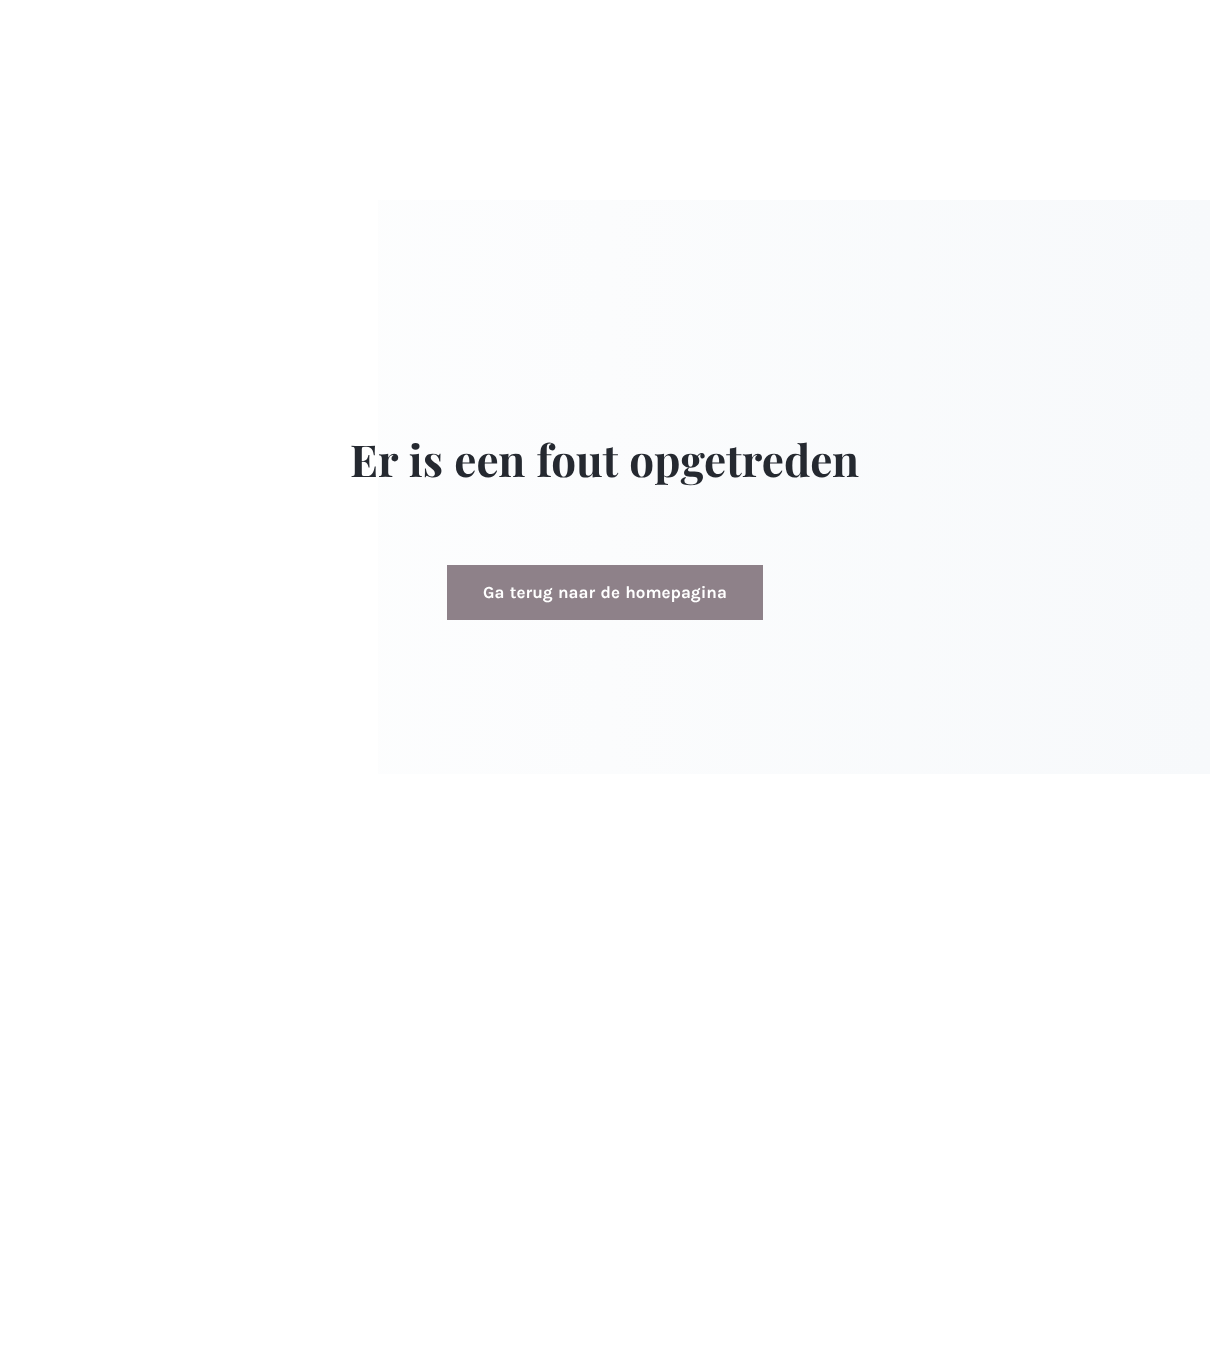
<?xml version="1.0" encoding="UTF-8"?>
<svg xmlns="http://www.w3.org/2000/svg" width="1210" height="1353">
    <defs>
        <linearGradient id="g1" gradientUnits="userSpaceOnUse" x1="0" y1="487" x2="1210" y2="487"><stop offset="0" stop-color="#FFFFFF"/><stop offset="1" stop-color="#F7F9FB"/></linearGradient>
    </defs>
    <rect width="100%" height="100%" fill="#FFFFFF"/>
    <rect x="378" y="200" width="832" height="574" fill="url(#g1)"/>
    <text x="350" y="477" word-spacing="1" font-family="Playfair Display" font-size="44" font-weight="700" fill="#252930">Er is een fout opgetreden</text>
    <rect x="447" y="565" width="316" height="55" fill="#8E8189"/>
    <text x="483" y="598" word-spacing="1" font-family="Karla" font-size="17" font-weight="700" fill="#FFFFFF">Ga terug naar de homepagina</text>
</svg>
